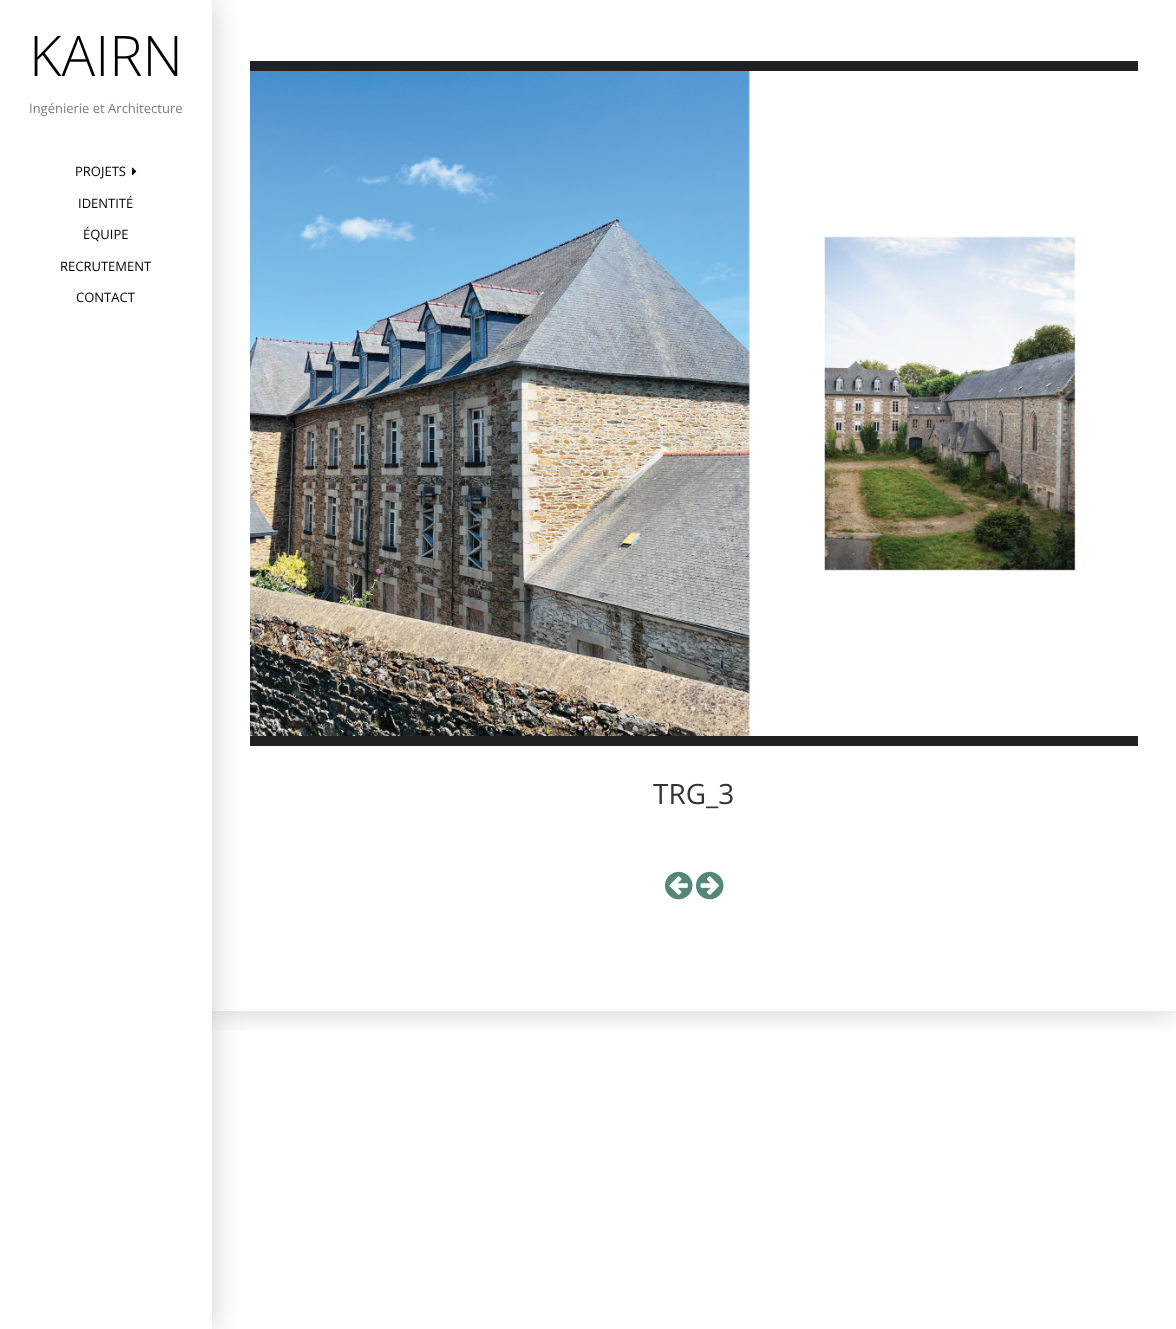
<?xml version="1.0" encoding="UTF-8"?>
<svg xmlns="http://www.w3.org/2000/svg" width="1176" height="1329">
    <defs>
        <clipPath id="clip1"><rect x="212" y="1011" width="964" height="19"/></clipPath>
        <filter id="blur1" x="-50%" y="-200%" width="200%" height="500%"><feGaussianBlur stdDeviation="15"/></filter>
    </defs>
    <rect width="100%" height="100%" fill="#FFFFFF"/>
    <g clip-path="url(#clip1)">
        <rect x="212" y="0" width="964" height="1011" fill="#000000" fill-opacity="0.2" filter="url(#blur1)"/>
    </g>
    <rect x="250" y="61" width="888" height="685" fill="#212121"/>
    <image x="250" y="71" width="888" height="665" href="img_02.png"/>
    <rect x="0" y="0" width="212" height="1329" fill="#000000" fill-opacity="0.2" filter="url(#blur1)"/>
    <rect x="0" y="0" width="212" height="1329" fill="#FFFFFF"/>
    <text x="29" y="76" font-family="Open Sans" font-size="56" font-weight="300" fill="#000000">KAIRN</text>
    <text x="29" y="113" font-family="Open Sans" font-size="13" fill="#797D82">Ingénierie et Architecture</text>
    <text x="75" y="176" font-family="Open Sans" font-size="13" fill="#000000">PROJETS</text>
    <image x="132" y="167" width="5" height="8" href="img_01.png"/>
    <text x="78" y="208" font-family="Open Sans" font-size="13" fill="#000000">IDENTITÉ</text>
    <text x="83" y="239" font-family="Open Sans" font-size="13" fill="#000000">ÉQUIPE</text>
    <text x="60" y="271" font-family="Open Sans" font-size="13" fill="#000000">RECRUTEMENT</text>
    <text x="76" y="302" font-family="Open Sans" font-size="13" fill="#000000">CONTACT</text>
    <text x="653" y="804" font-family="Open Sans" font-size="28" fill="#333333">TRG_3</text>
    <image x="665" y="871" width="28" height="29" href="img_03.png"/>
    <image x="696" y="871" width="28" height="29" href="img_04.png"/>
</svg>
